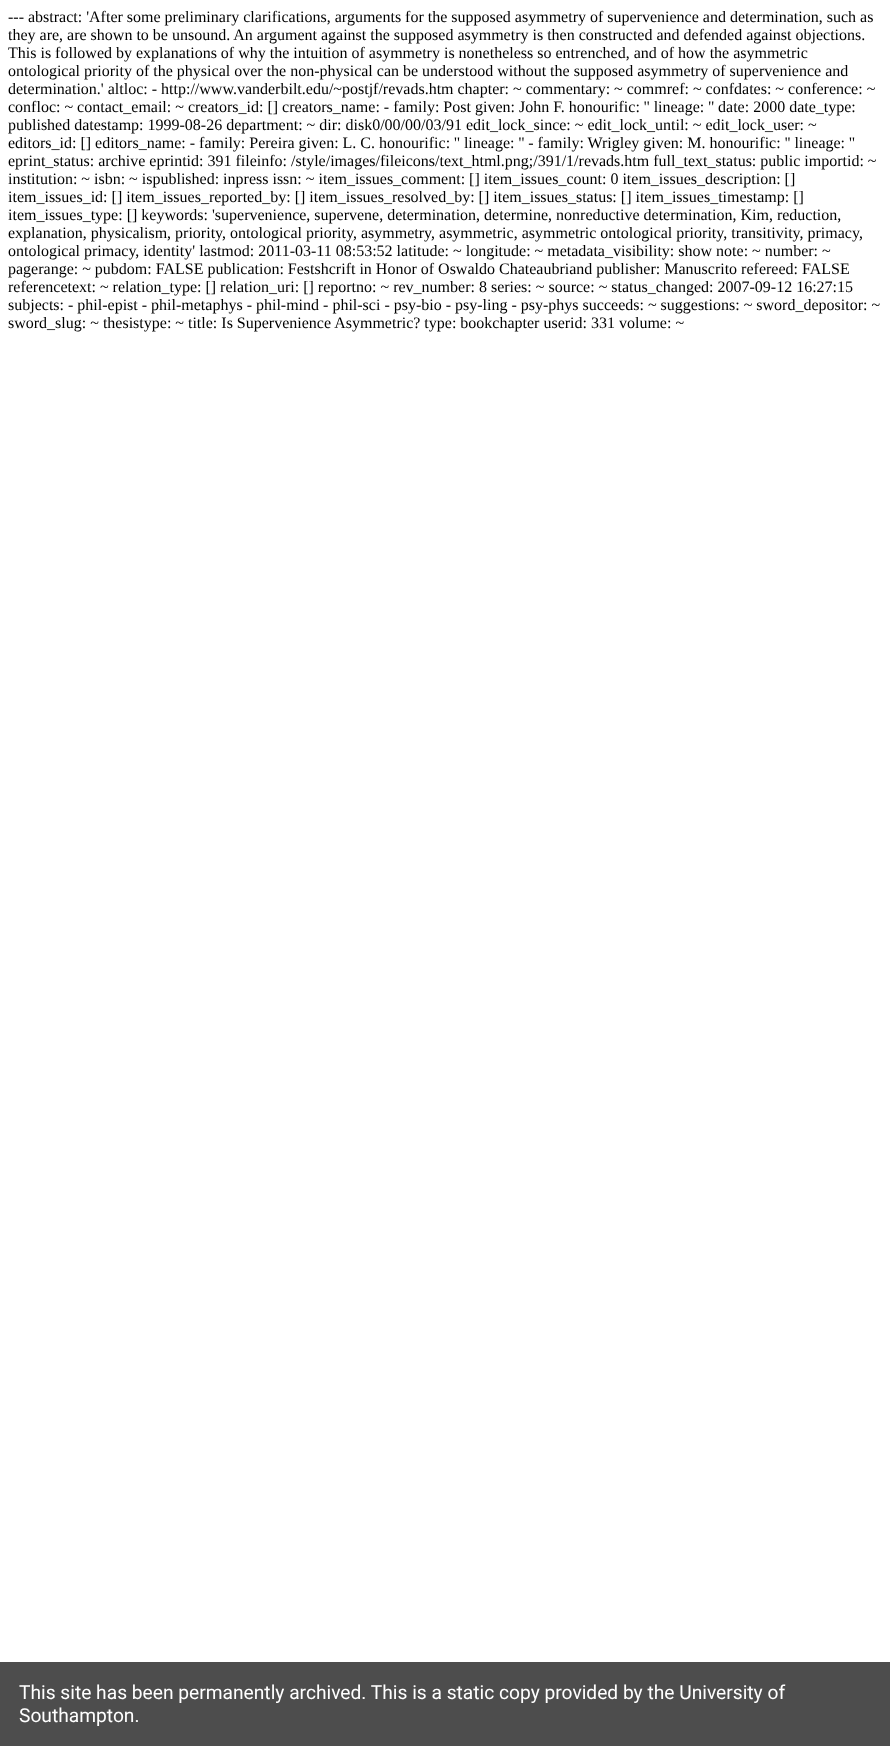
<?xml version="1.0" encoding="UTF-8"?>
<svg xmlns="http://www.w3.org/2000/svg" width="890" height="1746">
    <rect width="100%" height="100%" fill="#FFFFFF"/>
    <text font-family="Liberation Serif" font-size="16" fill="#000000">
        <tspan x="8" y="22">--- abstract: 'After some preliminary clarifications, arguments for the supposed asymmetry of supervenience and determination, such as</tspan>
        <tspan x="8" y="40">they are, are shown to be unsound. An argument against the supposed asymmetry is then constructed and defended against objections.</tspan>
        <tspan x="8" y="58">This is followed by explanations of why the intuition of asymmetry is nonetheless so entrenched, and of how the asymmetric</tspan>
        <tspan x="8" y="76">ontological priority of the physical over the non-physical can be understood without the supposed asymmetry of supervenience and</tspan>
        <tspan x="8" y="94">determination.' altloc: - http://www.vanderbilt.edu/~postjf/revads.htm chapter: ~ commentary: ~ commref: ~ confdates: ~ conference: ~</tspan>
        <tspan x="8" y="112">confloc: ~ contact_email: ~ creators_id: [] creators_name: - family: Post given: John F. honourific: '' lineage: '' date: 2000 date_type:</tspan>
        <tspan x="8" y="130">published datestamp: 1999-08-26 department: ~ dir: disk0/00/00/03/91 edit_lock_since: ~ edit_lock_until: ~ edit_lock_user: ~</tspan>
        <tspan x="8" y="148">editors_id: [] editors_name: - family: Pereira given: L. C. honourific: '' lineage: '' - family: Wrigley given: M. honourific: '' lineage: ''</tspan>
        <tspan x="8" y="166">eprint_status: archive eprintid: 391 fileinfo: /style/images/fileicons/text_html.png;/391/1/revads.htm full_text_status: public importid: ~</tspan>
        <tspan x="8" y="184">institution: ~ isbn: ~ ispublished: inpress issn: ~ item_issues_comment: [] item_issues_count: 0 item_issues_description: []</tspan>
        <tspan x="8" y="202">item_issues_id: [] item_issues_reported_by: [] item_issues_resolved_by: [] item_issues_status: [] item_issues_timestamp: []</tspan>
        <tspan x="8" y="220">item_issues_type: [] keywords: 'supervenience, supervene, determination, determine, nonreductive determination, Kim, reduction,</tspan>
        <tspan x="8" y="238">explanation, physicalism, priority, ontological priority, asymmetry, asymmetric, asymmetric ontological priority, transitivity, primacy,</tspan>
        <tspan x="8" y="256">ontological primacy, identity' lastmod: 2011-03-11 08:53:52 latitude: ~ longitude: ~ metadata_visibility: show note: ~ number: ~</tspan>
        <tspan x="8" y="274">pagerange: ~ pubdom: FALSE publication: Festshcrift in Honor of Oswaldo Chateaubriand publisher: Manuscrito refereed: FALSE</tspan>
        <tspan x="8" y="292">referencetext: ~ relation_type: [] relation_uri: [] reportno: ~ rev_number: 8 series: ~ source: ~ status_changed: 2007-09-12 16:27:15</tspan>
        <tspan x="8" y="310">subjects: - phil-epist - phil-metaphys - phil-mind - phil-sci - psy-bio - psy-ling - psy-phys succeeds: ~ suggestions: ~ sword_depositor: ~</tspan>
        <tspan x="8" y="328">sword_slug: ~ thesistype: ~ title: Is Supervenience Asymmetric? type: bookchapter userid: 331 volume: ~</tspan>
    </text>
    <rect x="0" y="1662" width="890" height="84" fill="#4D4D4D"/>
    <text font-family="Roboto" font-size="19.2" fill="#FFFFFF">
        <tspan x="19" y="1699">This site has been permanently archived. This is a static copy provided by the University of</tspan>
        <tspan x="19" y="1722">Southampton.</tspan>
    </text>
</svg>
